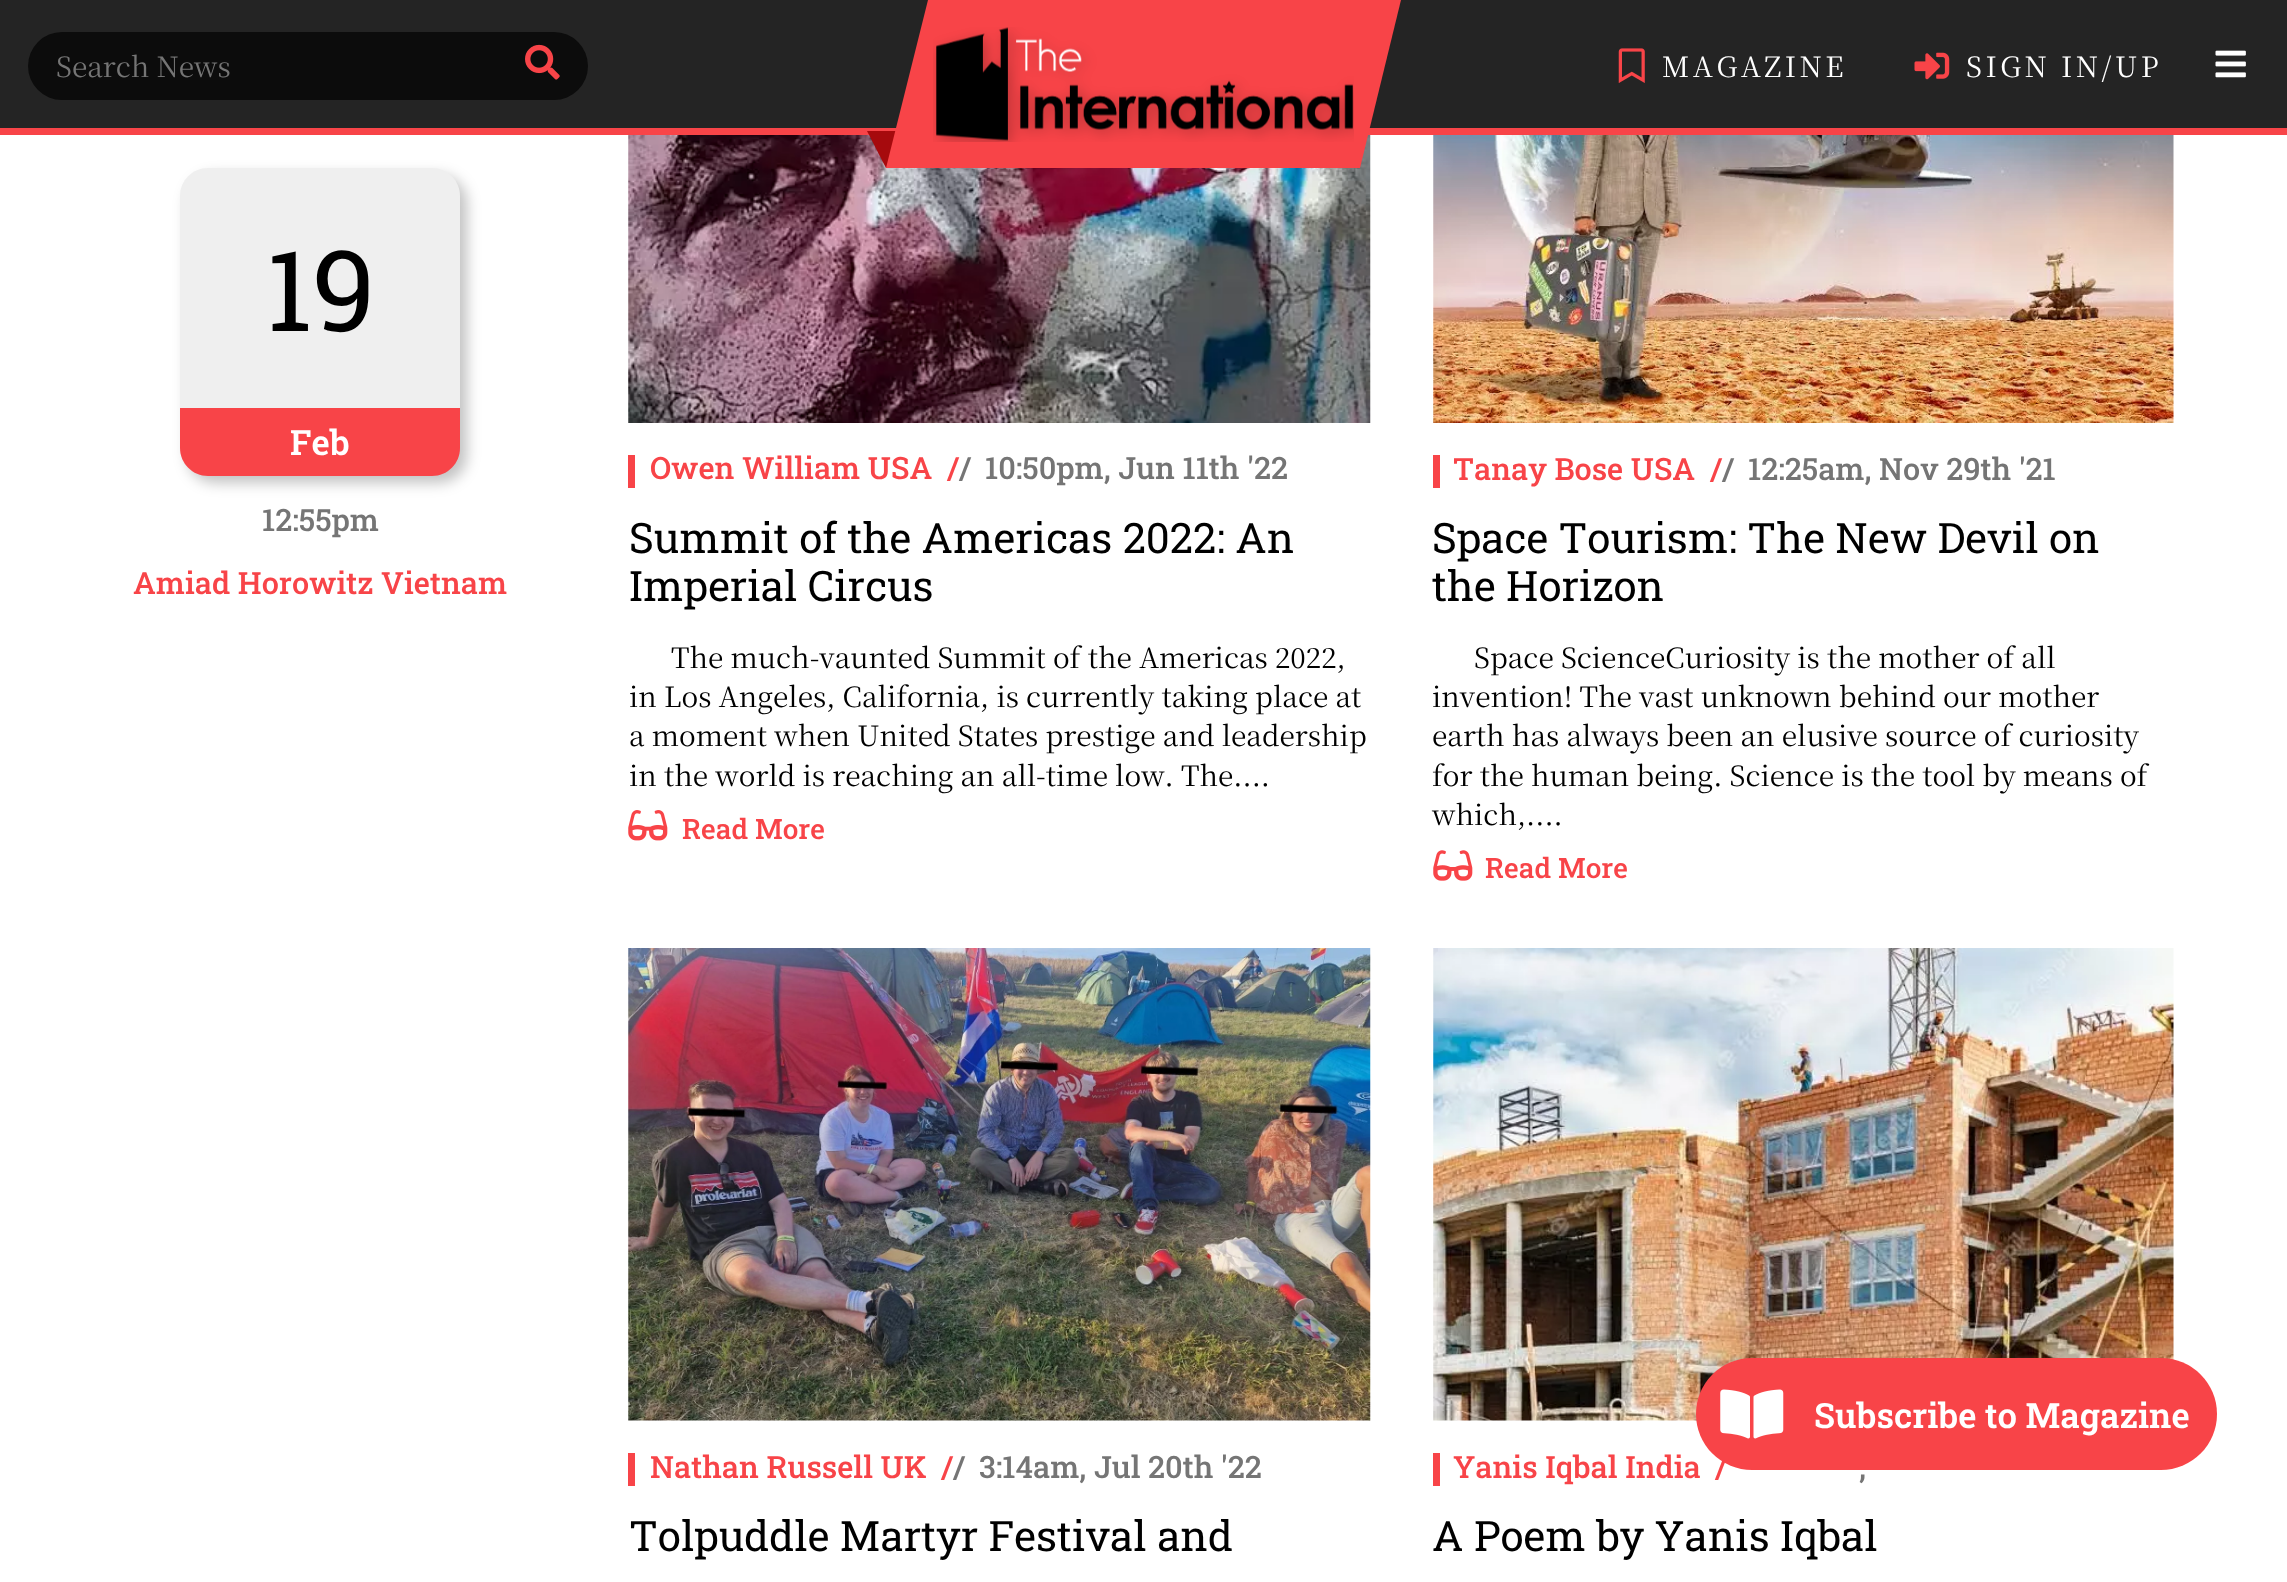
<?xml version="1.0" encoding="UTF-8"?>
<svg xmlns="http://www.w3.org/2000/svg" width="2287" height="1582">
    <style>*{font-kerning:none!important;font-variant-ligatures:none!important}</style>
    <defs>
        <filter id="blur1" x="-50%" y="-200%" width="200%" height="500%"><feGaussianBlur stdDeviation="7"/></filter>
    </defs>
    <rect width="100%" height="100%" fill="#FFFFFF"/>
    <rect x="0" y="0" width="2287" height="128" fill="#242424"/>
    <rect x="0" y="128" width="2287" height="7" fill="#F84448"/>
    <rect x="28" y="32" width="560" height="68" rx="34" fill="#0C0C0C"/>
    <text x="56" y="77" font-family="Noto Serif KR" font-size="28" fill="#757575">Search News</text>
    <image x="525" y="44" width="35" height="36" href="img_01.png"/>
    <image x="628" y="135" width="743" height="288" href="img_06.png"/>
    <path d="M 867 131 H 1103 L 1123 168 H 886 Z" fill="#A60A0D"/>
    <path d="M 928 0 H 1401 L 1360 168 H 886 Z" fill="#F84448"/>
    <image x="933" y="27" width="421" height="115" href="img_02.png"/>
    <image x="1618" y="48" width="27" height="35" href="img_03.png"/>
    <text x="1662" y="77" font-family="Noto Serif KR" font-size="28" letter-spacing="3.5" fill="#FFFFFF">MAGAZINE</text>
    <image x="1914" y="52" width="36" height="28" href="img_04.png"/>
    <text x="1966" y="77" font-family="Noto Serif KR" font-size="28" letter-spacing="3.5" fill="#FFFFFF">SIGN IN/UP</text>
    <image x="2215" y="50" width="31" height="28" href="img_05.png"/>
    <rect x="187" y="175" width="280" height="308" rx="28" fill="#000000" fill-opacity="0.24" filter="url(#blur1)"/>
    <path d="M 208 168 H 432 C 447.5 168 460 180.5 460 196 V 408 H 180 V 196 C 180 180.5 192.5 168 208 168 Z" fill="#EFEFEF"/>
    <text x="266" y="331" font-family="Roboto Slab" font-size="112" fill="#000000">19</text>
    <path d="M 180 408 H 460 V 448 C 460 463.5 447.5 476 432 476 H 208 C 192.5 476 180 463.5 180 448 Z" fill="#F84448"/>
    <text x="290" y="455" font-family="Roboto Slab" font-size="34.75" font-weight="600" fill="#FFFFFF">Feb</text>
    <text x="262" y="531" font-family="Roboto Slab" font-size="30.75" font-weight="500" fill="#757575">12:55pm</text>
    <text x="133" y="594" font-family="Roboto Slab" font-size="30.75" font-weight="500" fill="#F84448">Amiad Horowitz Vietnam</text>
    <text x="650" y="479" font-family="Roboto Slab" font-size="30.75" font-weight="500" fill="#F84448">Owen William USA</text>
    <rect x="628" y="455" width="7" height="33" fill="#F84448"/>
    <text x="947" y="479" font-family="Roboto Slab" font-size="30.75" font-weight="500" fill="#F84448">/</text>
    <text x="959" y="479" font-family="Roboto Slab" font-size="30.75" font-weight="500" fill="#757575">/</text>
    <text x="985" y="479" font-family="Roboto Slab" font-size="30.75" font-weight="500" fill="#757575">10:50pm, Jun 11th '22</text>
    <text font-family="Roboto Slab" font-size="42" fill="#000000">
        <tspan x="629" y="553">Summit of the Americas 2022: An</tspan>
        <tspan x="629" y="601">Imperial Circus</tspan>
    </text>
    <text x="671" y="668" font-family="Noto Serif KR" font-size="28" fill="#000000">The much-vaunted Summit of the Americas 2022,</text>
    <text font-family="Noto Serif KR" font-size="28" fill="#000000">
        <tspan x="629" y="707">in Los Angeles, California, is currently taking place at</tspan>
        <tspan x="629" y="746">a moment when United States prestige and leadership</tspan>
        <tspan x="629" y="786">in the world is reaching an all-time low.</tspan>
    </text>
    <text x="1181" y="786" font-family="Noto Serif KR" font-size="28" fill="#000000">The....</text>
    <image x="628" y="810" width="40" height="31" href="img_07.png"/>
    <text x="682" y="839" font-family="Roboto Slab" font-size="28" font-weight="500" fill="#F84448">Read More</text>
    <image x="1433" y="135" width="741" height="288" href="img_08.png"/>
    <text x="1453" y="480" font-family="Roboto Slab" font-size="30.75" font-weight="500" fill="#F84448">Tanay Bose USA</text>
    <rect x="1433" y="455" width="7" height="33" fill="#F84448"/>
    <text x="1710" y="480" font-family="Roboto Slab" font-size="30.75" font-weight="500" fill="#F84448">/</text>
    <text x="1722" y="480" font-family="Roboto Slab" font-size="30.75" font-weight="500" fill="#757575">/</text>
    <text x="1748" y="480" font-family="Roboto Slab" font-size="30.75" font-weight="500" fill="#757575">12:25am, Nov 29th '21</text>
    <text font-family="Roboto Slab" font-size="42" fill="#000000">
        <tspan x="1432" y="553">Space Tourism: The New Devil on</tspan>
        <tspan x="1432" y="601">the Horizon</tspan>
    </text>
    <text x="1474" y="668" font-family="Noto Serif KR" font-size="28" fill="#000000">Space ScienceCuriosity is the mother of all</text>
    <text font-family="Noto Serif KR" font-size="28" fill="#000000">
        <tspan x="1432" y="707">invention! The vast unknown behind our mother</tspan>
        <tspan x="1432" y="746">earth has always been an elusive source of curiosity</tspan>
        <tspan x="1432" y="786">for the human being. Science is the tool by means of</tspan>
        <tspan x="1432" y="825">which,....</tspan>
    </text>
    <image x="1433" y="850" width="40" height="31" href="img_09.png"/>
    <text x="1485" y="878" font-family="Roboto Slab" font-size="28" font-weight="500" fill="#F84448">Read More</text>
    <image x="628" y="948" width="743" height="473" href="img_10.png"/>
    <text x="650" y="1478" font-family="Roboto Slab" font-size="30.75" font-weight="500" fill="#F84448">Nathan Russell UK</text>
    <rect x="628" y="1453" width="7" height="33" fill="#F84448"/>
    <text x="941" y="1478" font-family="Roboto Slab" font-size="30.75" font-weight="500" fill="#F84448">/</text>
    <text x="953" y="1478" font-family="Roboto Slab" font-size="30.75" font-weight="500" fill="#757575">/</text>
    <text x="979" y="1478" font-family="Roboto Slab" font-size="30.75" font-weight="500" fill="#757575">3:14am, Jul 20th '22</text>
    <text x="629" y="1551" font-family="Roboto Slab" font-size="42" fill="#000000">Tolpuddle Martyr Festival and</text>
    <image x="1433" y="948" width="741" height="473" href="img_11.png"/>
    <text x="1453" y="1478" font-family="Roboto Slab" font-size="30.75" font-weight="500" fill="#F84448">Yanis Iqbal India</text>
    <rect x="1433" y="1453" width="7" height="33" fill="#F84448"/>
    <text x="1715" y="1478" font-family="Roboto Slab" font-size="30.75" font-weight="500" fill="#F84448">/</text>
    <text x="1859" y="1478" font-family="Roboto Slab" font-size="30.75" font-weight="500" fill="#757575">,</text>
    <text x="1432" y="1551" font-family="Roboto Slab" font-size="42" fill="#000000">A Poem by Yanis Iqbal</text>
    <rect x="1696" y="1358" width="521" height="112" rx="56" fill="#F84448"/>
    <image x="1720" y="1389" width="64" height="50" href="img_12.png"/>
    <text x="1814" y="1428" font-family="Roboto Slab" font-size="34.75" font-weight="600" fill="#FFFFFF">Subscribe to Magazine</text>
</svg>
